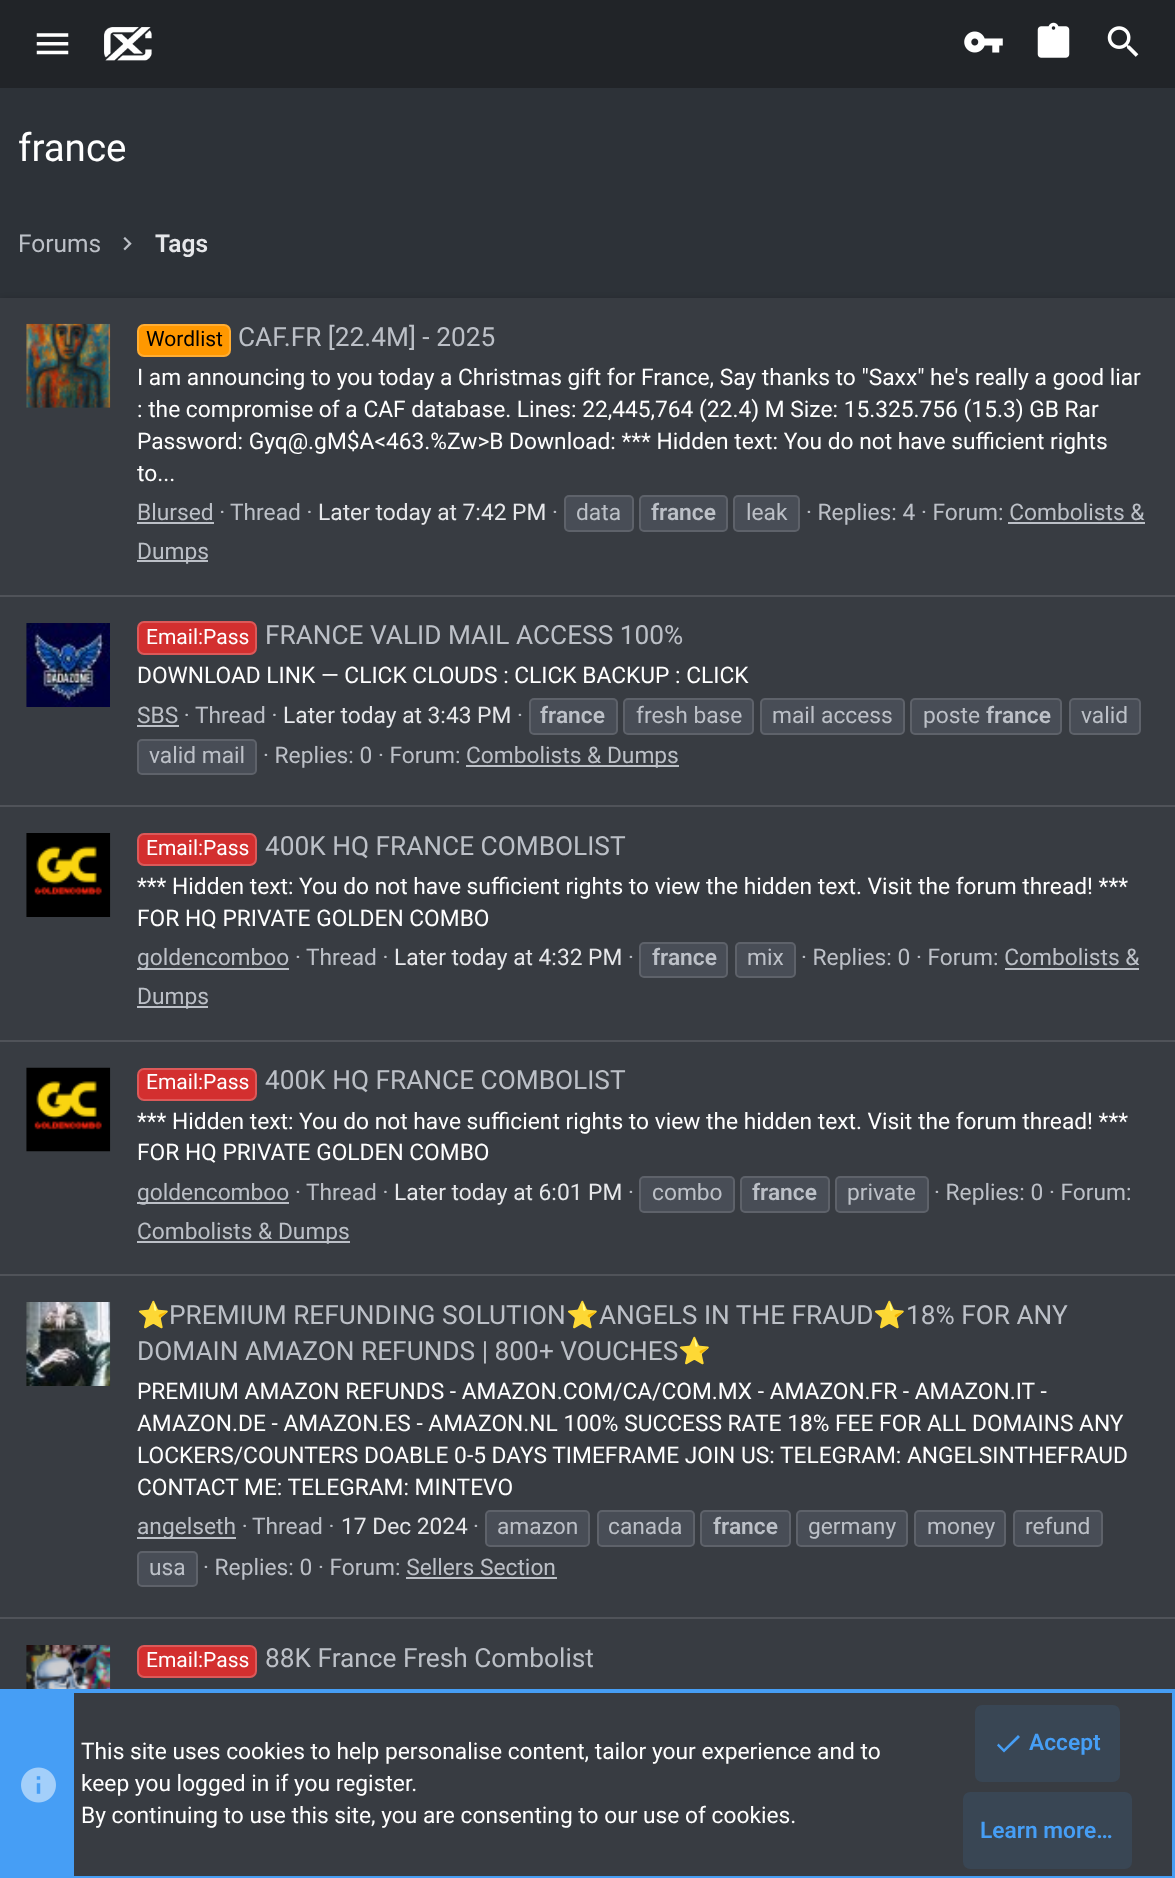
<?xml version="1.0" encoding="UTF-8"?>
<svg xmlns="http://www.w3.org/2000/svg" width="1175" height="1878">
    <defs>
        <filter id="blur1" x="-50%" y="-200%" width="200%" height="500%"><feGaussianBlur stdDeviation="4.5"/></filter>
    </defs>
    <rect width="100%" height="100%" fill="#2D3238"/>
    <rect x="0" y="0" width="1175" height="88" fill="#212428"/>
    <image x="36" y="33" width="33" height="22" href="img_01.png"/>
    <image x="104" y="27" width="48" height="34" href="img_02.png"/>
    <image x="964" y="31" width="39" height="22" href="img_03.png"/>
    <image x="1037" y="22" width="33" height="36" href="img_04.png"/>
    <image x="1107" y="26" width="32" height="31" href="img_05.png"/>
    <text x="18" y="161" font-family="Roboto" font-size="38.5" fill="#FFFFFF">france</text>
    <text x="18" y="252" font-family="Roboto" font-size="24.5" fill="#BCC0C7">Forums</text>
    <image x="123" y="237" width="9" height="14" href="img_06.png"/>
    <text x="155" y="252" font-family="Roboto" font-size="24.5" font-weight="600" fill="#E6E7EA">Tags</text>
    <rect x="0" y="299" width="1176" height="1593" fill="#000000" fill-opacity="0.2" filter="url(#blur1)"/>
    <rect x="0" y="298" width="1175" height="1391" fill="#383C42"/>
    <image x="26" y="323" width="85" height="85" href="img_07.png"/>
    <rect x="138" y="325" width="92" height="31" rx="6" fill="#FF9800" stroke="#FFAD33" stroke-width="2"/>
    <text x="146" y="346" font-family="Roboto" font-size="21" fill="#000000">Wordlist</text>
    <text x="238" y="346" font-family="Roboto" font-size="26.25" fill="#BCC0C7">CAF.FR [22.4M] - 2025</text>
    <text font-family="Roboto" font-size="22.75" fill="#FFFFFF">
        <tspan x="137" y="385">I am announcing to you today a Christmas gift for France, Say thanks to "Saxx" he's really a good liar</tspan>
        <tspan x="137" y="417">: the compromise of a CAF database. Lines: 22,445,764 (22.4) M Size: 15.325.756 (15.3) GB Rar</tspan>
        <tspan x="137" y="449">Password: Gyq@.gM$A&lt;463.%Zw&gt;B Download: *** Hidden text: You do not have sufficient rights</tspan>
        <tspan x="137" y="481">to...</tspan>
    </text>
    <text x="137" y="520" font-family="Roboto" font-size="22.75" fill="#BCC0C7">Blursed ·</text>
    <rect x="137" y="522" width="77" height="2" fill="#BCC0C7"/>
    <text x="230" y="520" font-family="Roboto" font-size="22.75" fill="#BCC0C7">Thread ·</text>
    <text x="318" y="520" font-family="Roboto" font-size="22.75" fill="#E6E7EA">Later today at 7:42 PM</text>
    <text x="552" y="520" font-family="Roboto" font-size="22.75" fill="#BCC0C7">·</text>
    <rect x="564" y="495" width="70" height="37" rx="5" fill="#484D56"/>
    <rect x="565" y="496" width="68" height="35" rx="4" fill="none" stroke="#FFFFFF" stroke-opacity="0.12" stroke-width="2"/>
    <text x="576" y="520" font-family="Roboto" font-size="22.75" fill="#BCC0C7">data</text>
    <rect x="639" y="495" width="89" height="37" rx="5" fill="#484D56"/>
    <rect x="640" y="496" width="87" height="35" rx="4" fill="none" stroke="#FFFFFF" stroke-opacity="0.12" stroke-width="2"/>
    <text x="651" y="520" font-family="Roboto" font-size="22.75" font-weight="600" fill="#BCC0C7">france</text>
    <rect x="733" y="495" width="67" height="37" rx="5" fill="#484D56"/>
    <rect x="734" y="496" width="65" height="35" rx="4" fill="none" stroke="#FFFFFF" stroke-opacity="0.12" stroke-width="2"/>
    <text x="746" y="520" font-family="Roboto" font-size="22.75" fill="#BCC0C7">leak</text>
    <text x="806" y="520" font-family="Roboto" font-size="22.75" fill="#BCC0C7">· Replies: 4 · Forum: Combolists &amp;</text>
    <rect x="137" y="560" width="71" height="2" fill="#BCC0C7"/>
    <text x="137" y="559" font-family="Roboto" font-size="22.75" fill="#BCC0C7">Dumps</text>
    <rect x="1008" y="522" width="137" height="2" fill="#BCC0C7"/>
    <rect x="0" y="595" width="1175" height="2" fill="#505359"/>
    <image x="26" y="623" width="84" height="84" href="img_08.png"/>
    <rect x="138" y="622" width="118" height="32" rx="6" fill="#D32F2F" stroke="#DC5959" stroke-width="2"/>
    <text x="146" y="644" font-family="Roboto" font-size="21" fill="#FFFFFF">Email:Pass</text>
    <text x="265" y="644" font-family="Roboto" font-size="26.25" fill="#BCC0C7">FRANCE VALID MAIL ACCESS 100%</text>
    <text x="137" y="683" font-family="Roboto" font-size="22.75" fill="#FFFFFF">DOWNLOAD LINK — CLICK CLOUDS : CLICK BACKUP : CLICK</text>
    <text x="517" y="723" font-family="Roboto" font-size="22.75" fill="#BCC0C7">·</text>
    <rect x="529" y="698" width="89" height="37" rx="5" fill="#484D56"/>
    <rect x="530" y="699" width="87" height="35" rx="4" fill="none" stroke="#FFFFFF" stroke-opacity="0.12" stroke-width="2"/>
    <text x="540" y="723" font-family="Roboto" font-size="22.75" font-weight="600" fill="#BCC0C7">france</text>
    <rect x="623" y="698" width="131" height="37" rx="5" fill="#484D56"/>
    <rect x="624" y="699" width="129" height="35" rx="4" fill="none" stroke="#FFFFFF" stroke-opacity="0.12" stroke-width="2"/>
    <text x="636" y="723" font-family="Roboto" font-size="22.75" fill="#BCC0C7">fresh base</text>
    <rect x="760" y="698" width="145" height="37" rx="5" fill="#484D56"/>
    <rect x="761" y="699" width="143" height="35" rx="4" fill="none" stroke="#FFFFFF" stroke-opacity="0.12" stroke-width="2"/>
    <text x="772" y="723" font-family="Roboto" font-size="22.75" fill="#BCC0C7">mail access</text>
    <rect x="910" y="698" width="152" height="37" rx="5" fill="#484D56"/>
    <rect x="911" y="699" width="150" height="35" rx="4" fill="none" stroke="#FFFFFF" stroke-opacity="0.12" stroke-width="2"/>
    <text x="923" y="723" font-family="Roboto" font-size="22.75" fill="#BCC0C7">poste</text>
    <text x="986" y="723" font-family="Roboto" font-size="22.75" font-weight="600" fill="#BCC0C7">france</text>
    <rect x="1069" y="698" width="72" height="37" rx="5" fill="#484D56"/>
    <rect x="1070" y="699" width="70" height="35" rx="4" fill="none" stroke="#FFFFFF" stroke-opacity="0.12" stroke-width="2"/>
    <text x="1081" y="723" font-family="Roboto" font-size="22.75" fill="#BCC0C7">valid</text>
    <rect x="137" y="739" width="120" height="36" rx="5" fill="#484D56"/>
    <rect x="138" y="740" width="118" height="34" rx="4" fill="none" stroke="#FFFFFF" stroke-opacity="0.12" stroke-width="2"/>
    <text x="149" y="763" font-family="Roboto" font-size="22.75" fill="#BCC0C7">valid mail</text>
    <text x="137" y="723" font-family="Roboto" font-size="22.75" fill="#BCC0C7">SBS ·</text>
    <rect x="137" y="725" width="42" height="2" fill="#BCC0C7"/>
    <text x="195" y="723" font-family="Roboto" font-size="22.75" fill="#BCC0C7">Thread ·</text>
    <text x="283" y="723" font-family="Roboto" font-size="22.75" fill="#E6E7EA">Later today at 3:43 PM</text>
    <text x="263" y="763" font-family="Roboto" font-size="22.75" fill="#BCC0C7">· Replies: 0 · Forum:</text>
    <rect x="466" y="765" width="213" height="2" fill="#BCC0C7"/>
    <text x="466" y="763" font-family="Roboto" font-size="22.75" fill="#BCC0C7">Combolists &amp; Dumps</text>
    <rect x="0" y="805" width="1175" height="2" fill="#505359"/>
    <image x="26" y="833" width="85" height="84" href="img_09.png"/>
    <rect x="138" y="834" width="118" height="31" rx="6" fill="#D32F2F" stroke="#DC5959" stroke-width="2"/>
    <text x="146" y="855" font-family="Roboto" font-size="21" fill="#FFFFFF">Email:Pass</text>
    <text x="265" y="855" font-family="Roboto" font-size="26.25" fill="#BCC0C7">400K HQ FRANCE COMBOLIST</text>
    <text font-family="Roboto" font-size="22.75" fill="#FFFFFF">
        <tspan x="137" y="894">*** Hidden text: You do not have sufficient rights to view the hidden text. Visit the forum thread! ***</tspan>
        <tspan x="137" y="926">FOR HQ PRIVATE GOLDEN COMBO</tspan>
    </text>
    <rect x="137" y="968" width="152" height="2" fill="#BCC0C7"/>
    <text x="137" y="965" font-family="Roboto" font-size="22.75" fill="#BCC0C7">goldencomboo ·</text>
    <text x="306" y="965" font-family="Roboto" font-size="22.75" fill="#BCC0C7">Thread ·</text>
    <text x="394" y="965" font-family="Roboto" font-size="22.75" fill="#E6E7EA">Later today at 4:32 PM</text>
    <text x="628" y="965" font-family="Roboto" font-size="22.75" fill="#BCC0C7">·</text>
    <rect x="639" y="942" width="89" height="36" rx="5" fill="#484D56"/>
    <rect x="640" y="943" width="87" height="34" rx="4" fill="none" stroke="#FFFFFF" stroke-opacity="0.12" stroke-width="2"/>
    <text x="652" y="965" font-family="Roboto" font-size="22.75" font-weight="600" fill="#BCC0C7">france</text>
    <rect x="735" y="942" width="61" height="36" rx="5" fill="#484D56"/>
    <rect x="736" y="943" width="59" height="34" rx="4" fill="none" stroke="#FFFFFF" stroke-opacity="0.12" stroke-width="2"/>
    <text x="747" y="965" font-family="Roboto" font-size="22.75" fill="#BCC0C7">mix</text>
    <text x="801" y="965" font-family="Roboto" font-size="22.75" fill="#BCC0C7">· Replies: 0 · Forum: Combolists &amp;</text>
    <rect x="137" y="1006" width="71" height="2" fill="#BCC0C7"/>
    <text x="137" y="1004" font-family="Roboto" font-size="22.75" fill="#BCC0C7">Dumps</text>
    <rect x="1005" y="968" width="134" height="2" fill="#BCC0C7"/>
    <rect x="0" y="1040" width="1175" height="2" fill="#505359"/>
    <image x="26" y="1067" width="85" height="85" href="img_10.png"/>
    <rect x="138" y="1069" width="118" height="31" rx="6" fill="#D32F2F" stroke="#DC5959" stroke-width="2"/>
    <text x="146" y="1089" font-family="Roboto" font-size="21" fill="#FFFFFF">Email:Pass</text>
    <text x="265" y="1089" font-family="Roboto" font-size="26.25" fill="#BCC0C7">400K HQ FRANCE COMBOLIST</text>
    <text font-family="Roboto" font-size="22.75" fill="#FFFFFF">
        <tspan x="137" y="1129">*** Hidden text: You do not have sufficient rights to view the hidden text. Visit the forum thread! ***</tspan>
        <tspan x="137" y="1160">FOR HQ PRIVATE GOLDEN COMBO</tspan>
    </text>
    <rect x="137" y="1202" width="152" height="2" fill="#BCC0C7"/>
    <text x="137" y="1200" font-family="Roboto" font-size="22.75" fill="#BCC0C7">goldencomboo ·</text>
    <text x="306" y="1200" font-family="Roboto" font-size="22.75" fill="#BCC0C7">Thread ·</text>
    <text x="394" y="1200" font-family="Roboto" font-size="22.75" fill="#E6E7EA">Later today at 6:01 PM</text>
    <text x="628" y="1200" font-family="Roboto" font-size="22.75" fill="#BCC0C7">·</text>
    <rect x="639" y="1176" width="96" height="37" rx="5" fill="#484D56"/>
    <rect x="640" y="1177" width="94" height="35" rx="4" fill="none" stroke="#FFFFFF" stroke-opacity="0.12" stroke-width="2"/>
    <text x="652" y="1200" font-family="Roboto" font-size="22.75" fill="#BCC0C7">combo</text>
    <rect x="740" y="1176" width="90" height="37" rx="5" fill="#484D56"/>
    <rect x="741" y="1177" width="88" height="35" rx="4" fill="none" stroke="#FFFFFF" stroke-opacity="0.12" stroke-width="2"/>
    <text x="752" y="1200" font-family="Roboto" font-size="22.75" font-weight="600" fill="#BCC0C7">france</text>
    <rect x="835" y="1176" width="94" height="37" rx="5" fill="#484D56"/>
    <rect x="836" y="1177" width="92" height="35" rx="4" fill="none" stroke="#FFFFFF" stroke-opacity="0.12" stroke-width="2"/>
    <text x="847" y="1200" font-family="Roboto" font-size="22.75" fill="#BCC0C7">private</text>
    <text x="934" y="1200" font-family="Roboto" font-size="22.75" fill="#BCC0C7">· Replies: 0 · Forum:</text>
    <rect x="137" y="1241" width="213" height="2" fill="#BCC0C7"/>
    <text x="137" y="1239" font-family="Roboto" font-size="22.75" fill="#BCC0C7">Combolists &amp; Dumps</text>
    <rect x="0" y="1274" width="1175" height="2" fill="#505359"/>
    <image x="26" y="1302" width="85" height="84" href="img_11.png"/>
    <text x="137" y="1324" font-family="Noto Color Emoji" font-size="26.25" fill="#BCC0C7">⭐️</text>
    <text x="169" y="1324" font-family="Roboto" font-size="26.25" fill="#BCC0C7">PREMIUM REFUNDING SOLUTION</text>
    <text x="566" y="1324" font-family="Noto Color Emoji" font-size="26.25" fill="#BCC0C7">⭐️</text>
    <text x="599" y="1324" font-family="Roboto" font-size="26.25" fill="#BCC0C7">ANGELS IN THE FRAUD</text>
    <text x="873" y="1324" font-family="Noto Color Emoji" font-size="26.25" fill="#BCC0C7">⭐️</text>
    <text x="906" y="1324" font-family="Roboto" font-size="26.25" fill="#BCC0C7">18% FOR ANY</text>
    <text x="137" y="1360" font-family="Roboto" font-size="26.25" fill="#BCC0C7">DOMAIN AMAZON REFUNDS | 800+ VOUCHES</text>
    <text x="678" y="1360" font-family="Noto Color Emoji" font-size="26.25" fill="#BCC0C7">⭐️</text>
    <text font-family="Roboto" font-size="22.75" fill="#FFFFFF">
        <tspan x="137" y="1399">PREMIUM AMAZON REFUNDS - AMAZON.COM/CA/COM.MX - AMAZON.FR - AMAZON.IT -</tspan>
        <tspan x="137" y="1431">AMAZON.DE - AMAZON.ES - AMAZON.NL 100% SUCCESS RATE 18% FEE FOR ALL DOMAINS ANY</tspan>
        <tspan x="137" y="1463">LOCKERS/COUNTERS DOABLE 0-5 DAYS TIMEFRAME JOIN US: TELEGRAM: ANGELSINTHEFRAUD</tspan>
        <tspan x="137" y="1495">CONTACT ME: TELEGRAM: MINTEVO</tspan>
    </text>
    <rect x="137" y="1537" width="99" height="2" fill="#BCC0C7"/>
    <text x="137" y="1534" font-family="Roboto" font-size="22.75" fill="#BCC0C7">angelseth ·</text>
    <text x="473" y="1534" font-family="Roboto" font-size="22.75" fill="#BCC0C7">·</text>
    <rect x="485" y="1510" width="105" height="37" rx="5" fill="#484D56"/>
    <rect x="486" y="1511" width="103" height="35" rx="4" fill="none" stroke="#FFFFFF" stroke-opacity="0.12" stroke-width="2"/>
    <text x="497" y="1534" font-family="Roboto" font-size="22.75" fill="#BCC0C7">amazon</text>
    <rect x="597" y="1510" width="98" height="37" rx="5" fill="#484D56"/>
    <rect x="598" y="1511" width="96" height="35" rx="4" fill="none" stroke="#FFFFFF" stroke-opacity="0.12" stroke-width="2"/>
    <text x="608" y="1534" font-family="Roboto" font-size="22.75" fill="#BCC0C7">canada</text>
    <rect x="700" y="1510" width="91" height="37" rx="5" fill="#484D56"/>
    <rect x="701" y="1511" width="89" height="35" rx="4" fill="none" stroke="#FFFFFF" stroke-opacity="0.12" stroke-width="2"/>
    <text x="713" y="1534" font-family="Roboto" font-size="22.75" font-weight="600" fill="#BCC0C7">france</text>
    <rect x="796" y="1510" width="112" height="37" rx="5" fill="#484D56"/>
    <rect x="797" y="1511" width="110" height="35" rx="4" fill="none" stroke="#FFFFFF" stroke-opacity="0.12" stroke-width="2"/>
    <text x="808" y="1534" font-family="Roboto" font-size="22.75" fill="#BCC0C7">germany</text>
    <rect x="914" y="1510" width="92" height="37" rx="5" fill="#484D56"/>
    <rect x="915" y="1511" width="90" height="35" rx="4" fill="none" stroke="#FFFFFF" stroke-opacity="0.12" stroke-width="2"/>
    <text x="927" y="1534" font-family="Roboto" font-size="22.75" fill="#BCC0C7">money</text>
    <rect x="1013" y="1510" width="90" height="37" rx="5" fill="#484D56"/>
    <rect x="1014" y="1511" width="88" height="35" rx="4" fill="none" stroke="#FFFFFF" stroke-opacity="0.12" stroke-width="2"/>
    <text x="1025" y="1534" font-family="Roboto" font-size="22.75" fill="#BCC0C7">refund</text>
    <rect x="137" y="1551" width="61" height="36" rx="5" fill="#484D56"/>
    <rect x="138" y="1552" width="59" height="34" rx="4" fill="none" stroke="#FFFFFF" stroke-opacity="0.12" stroke-width="2"/>
    <text x="149" y="1575" font-family="Roboto" font-size="22.75" fill="#BCC0C7">usa</text>
    <text x="252" y="1534" font-family="Roboto" font-size="22.75" fill="#BCC0C7">Thread ·</text>
    <text x="341" y="1534" font-family="Roboto" font-size="22.75" fill="#E6E7EA">17 Dec 2024</text>
    <text x="203" y="1575" font-family="Roboto" font-size="22.75" fill="#BCC0C7">· Replies: 0 · Forum: Sellers Section</text>
    <rect x="406" y="1577" width="151" height="2" fill="#BCC0C7"/>
    <rect x="0" y="1617" width="1175" height="2" fill="#505359"/>
    <image x="26" y="1645" width="85" height="44" href="img_12.png"/>
    <rect x="138" y="1646" width="118" height="31" rx="6" fill="#D32F2F" stroke="#DC5959" stroke-width="2"/>
    <text x="146" y="1667" font-family="Roboto" font-size="21" fill="#FFFFFF">Email:Pass</text>
    <text x="265" y="1667" font-family="Roboto" font-size="26.25" fill="#BCC0C7">88K France Fresh Combolist</text>
    <rect x="74" y="1693" width="1098" height="183" fill="#383C42"/>
    <rect x="2" y="1691" width="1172" height="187" fill="none" stroke="#469EF5" stroke-width="4"/>
    <rect x="4" y="1693" width="70" height="183" fill="#469EF5"/>
    <image x="21" y="1767" width="35" height="36" href="img_13.png"/>
    <text font-family="Roboto" font-size="22.75" fill="#FFFFFF">
        <tspan x="81" y="1759">This site uses cookies to help personalise content, tailor your experience and to</tspan>
        <tspan x="81" y="1791">keep you logged in if you register.</tspan>
        <tspan x="81" y="1823">By continuing to use this site, you are consenting to our use of cookies.</tspan>
    </text>
    <rect x="975" y="1705" width="145" height="77" rx="7" fill="#394654"/>
    <path d="M 1020 1737 L 1004 1752.5 L 997 1745.5 L 998.5 1743.5 L 1004 1749 L 1018 1735 Z" fill="#469EF5"/>
    <text x="1029" y="1750" font-family="Roboto" font-size="22.75" font-weight="600" fill="#469EF5">Accept</text>
    <rect x="963" y="1792" width="169" height="77" rx="7" fill="#394654"/>
    <text x="980" y="1838" font-family="Roboto" font-size="22.75" font-weight="600" fill="#469EF5">Learn more…</text>
</svg>
